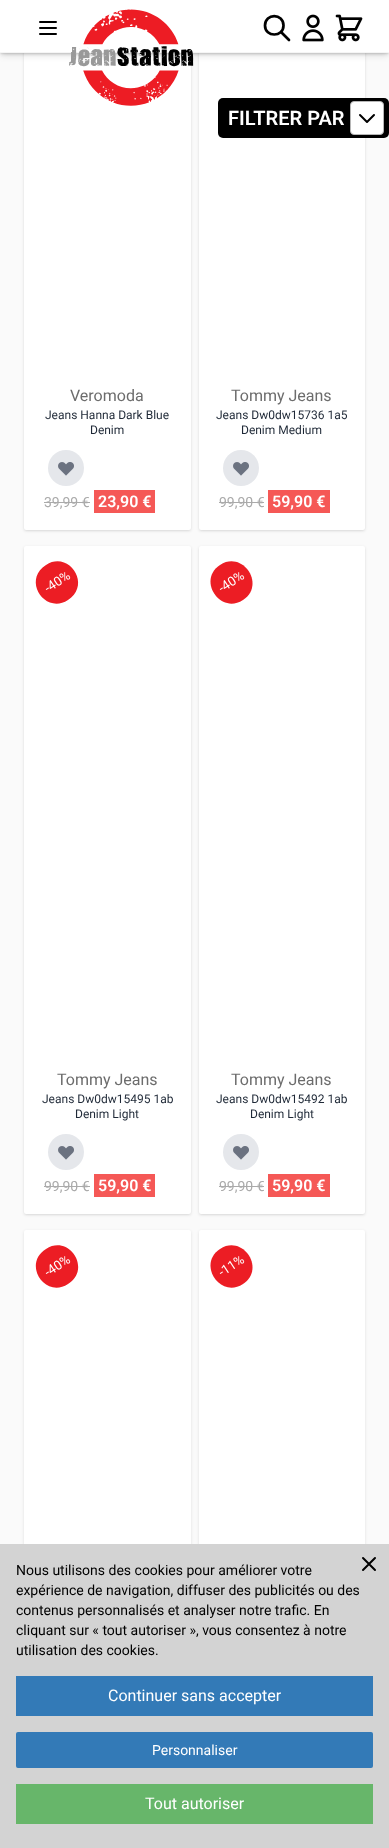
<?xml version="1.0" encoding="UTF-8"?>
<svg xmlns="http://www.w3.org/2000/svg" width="389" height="1848">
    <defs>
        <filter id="blur1" x="-50%" y="-200%" width="200%" height="500%"><feGaussianBlur stdDeviation="1"/></filter>
        <filter id="blur2" x="-50%" y="-200%" width="200%" height="500%"><feGaussianBlur stdDeviation="1.5"/></filter>
        <filter id="blur3" x="-50%" y="-200%" width="200%" height="500%"><feGaussianBlur stdDeviation="2"/></filter>
        <filter id="blur4" x="-50%" y="-200%" width="200%" height="500%"><feGaussianBlur stdDeviation="3"/></filter>
    </defs>
    <rect width="100%" height="100%" fill="#FAFAFA"/>
    <rect x="25" y="-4" width="165" height="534" rx="1" fill="#000000" fill-opacity="0.1" filter="url(#blur1)"/>
    <rect x="24" y="-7" width="167" height="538" rx="2" fill="#000000" fill-opacity="0.1" filter="url(#blur2)"/>
    <rect x="24" y="-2" width="167" height="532" rx="2" fill="#FFFFFF"/>
    <rect x="200" y="-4" width="164" height="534" rx="1" fill="#000000" fill-opacity="0.1" filter="url(#blur1)"/>
    <rect x="199" y="-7" width="166" height="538" rx="2" fill="#000000" fill-opacity="0.1" filter="url(#blur2)"/>
    <rect x="199" y="-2" width="166" height="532" rx="2" fill="#FFFFFF"/>
    <rect x="2" y="4" width="385" height="49" fill="#000000" fill-opacity="0.1" filter="url(#blur3)"/>
    <rect x="1" y="5" width="387" height="51" fill="#000000" fill-opacity="0.1" filter="url(#blur4)"/>
    <rect x="1" y="2" width="387" height="51" fill="#000000" fill-opacity="0.1" filter="url(#blur1)"/>
    <rect x="0" y="1" width="389" height="53" fill="#000000" fill-opacity="0.1" filter="url(#blur2)"/>
    <rect x="0" y="0" width="389" height="52" fill="#FFFFFF"/>
    <rect x="0" y="52" width="389" height="1" fill="#F5F5F5"/>
    <image x="69" y="9" width="125" height="97" href="img_01.png"/>
    <rect x="71" y="47" width="1" height="5" fill="#FFFFFF"/>
    <path d="M 40 22 H 56 M 40 28 H 56 M 40 34 H 56" fill="none" stroke="#000000" stroke-width="2" stroke-linecap="round" stroke-linejoin="round"/>
    <path d="M 289 40 L 281 32 M 283.5 25.5 C 283.5 37.5 265 37.5 265 25.5 C 265 13 283.5 13 283.5 25.5 Z" fill="none" stroke="#000000" stroke-width="2.7" stroke-linecap="round" stroke-linejoin="round"/>
    <image x="302" y="14" width="22" height="28" href="img_02.png"/>
    <image x="335" y="14" width="28" height="28" href="img_03.png"/>
    <rect x="218" y="98" width="171" height="40" rx="5" fill="#000000"/>
    <text x="228" y="125" font-family="Roboto" font-size="20" font-weight="600" fill="#FFFFFF">FILTRER PAR</text>
    <rect x="350.5" y="101.5" width="33" height="33" rx="3.5" fill="#FFFFFF" stroke="#B6B6B6"/>
    <path d="M 374 115 L 367 122 L 360 115" fill="none" stroke="#000000" stroke-width="2" stroke-linecap="round" stroke-linejoin="round"/>
    <text x="70" y="401" font-family="Roboto" font-size="16" fill="#6C6C6C">Veromoda</text>
    <text x="45" y="419" font-family="Roboto" font-size="12" fill="#1F2937">Jeans Hanna Dark Blue</text>
    <text x="90" y="434" font-family="Roboto" font-size="12" fill="#1F2937">Denim</text>
    <circle cx="66" cy="468" r="18" fill="#E5E7EB"/>
    <image x="58" y="462" width="16" height="14" href="img_04.png"/>
    <text x="44" y="507" font-family="Roboto" font-size="14" fill="#AAAAAA">39,99 €</text>
    <rect x="44" y="502" width="46" height="1" fill="#AAAAAA"/>
    <rect x="94" y="490" width="61" height="23" fill="#F55856"/>
    <text x="98" y="507" font-family="Roboto" font-size="16" font-weight="600" fill="#FFFFFF">23,90 €</text>
    <text x="231" y="401" font-family="Roboto" font-size="16" fill="#6C6C6C">Tommy Jeans</text>
    <text x="216" y="419" font-family="Roboto" font-size="12" fill="#1F2937">Jeans Dw0dw15736 1a5</text>
    <text x="241" y="434" font-family="Roboto" font-size="12" fill="#1F2937">Denim Medium</text>
    <circle cx="241" cy="468" r="18" fill="#E5E7EB"/>
    <image x="233" y="462" width="16" height="14" href="img_04.png"/>
    <text x="219" y="507" font-family="Roboto" font-size="14" fill="#AAAAAA">99,90 €</text>
    <rect x="219" y="502" width="45" height="1" fill="#AAAAAA"/>
    <rect x="268" y="490" width="62" height="23" fill="#F55856"/>
    <text x="272" y="507" font-family="Roboto" font-size="16" font-weight="600" fill="#FFFFFF">59,90 €</text>
    <rect x="25" y="548" width="165" height="666" rx="1" fill="#000000" fill-opacity="0.1" filter="url(#blur1)"/>
    <rect x="24" y="547" width="167" height="668" rx="2" fill="#000000" fill-opacity="0.1" filter="url(#blur2)"/>
    <rect x="24" y="546" width="167" height="668" rx="2" fill="#FFFFFF"/>
    <path d="M 46 565 C 69 550 92 585 68 600 C 45 615 22 580 46 565 Z" fill="#EC1D24"/>
    <text x="48" y="593" transform="rotate(-33 48 593)" font-family="Roboto" font-size="13" fill="#FFFFFF">-40%</text>
    <text x="44" y="1191" font-family="Roboto" font-size="14" fill="#AAAAAA">99,90 €</text>
    <rect x="44" y="1186" width="46" height="1" fill="#AAAAAA"/>
    <rect x="94" y="1174" width="61" height="23" fill="#F55856"/>
    <text x="98" y="1191" font-family="Roboto" font-size="16" font-weight="600" fill="#FFFFFF">59,90 €</text>
    <circle cx="66" cy="1152" r="18" fill="#E5E7EB"/>
    <image x="58" y="1146" width="16" height="14" href="img_04.png"/>
    <text x="57" y="1085" font-family="Roboto" font-size="16" fill="#6C6C6C">Tommy Jeans</text>
    <text x="42" y="1103" font-family="Roboto" font-size="12" fill="#1F2937">Jeans Dw0dw15495 1ab</text>
    <text x="75" y="1118" font-family="Roboto" font-size="12" fill="#1F2937">Denim Light</text>
    <rect x="200" y="548" width="164" height="666" rx="1" fill="#000000" fill-opacity="0.1" filter="url(#blur1)"/>
    <rect x="199" y="547" width="166" height="668" rx="2" fill="#000000" fill-opacity="0.1" filter="url(#blur2)"/>
    <rect x="199" y="546" width="166" height="668" rx="2" fill="#FFFFFF"/>
    <path d="M 220 565 C 243 550 266 585 243 600 C 220 615 197 580 220 565 Z" fill="#EC1D24"/>
    <text x="222" y="593" transform="rotate(-33 222 593)" font-family="Roboto" font-size="13" fill="#FFFFFF">-40%</text>
    <text x="219" y="1191" font-family="Roboto" font-size="14" fill="#AAAAAA">99,90 €</text>
    <rect x="219" y="1186" width="45" height="1" fill="#AAAAAA"/>
    <rect x="268" y="1174" width="62" height="23" fill="#F55856"/>
    <text x="272" y="1191" font-family="Roboto" font-size="16" font-weight="600" fill="#FFFFFF">59,90 €</text>
    <circle cx="241" cy="1152" r="18" fill="#E5E7EB"/>
    <image x="233" y="1146" width="16" height="14" href="img_04.png"/>
    <text x="231" y="1085" font-family="Roboto" font-size="16" fill="#6C6C6C">Tommy Jeans</text>
    <text x="216" y="1103" font-family="Roboto" font-size="12" fill="#1F2937">Jeans Dw0dw15492 1ab</text>
    <text x="250" y="1118" font-family="Roboto" font-size="12" fill="#1F2937">Denim Light</text>
    <rect x="24" y="1231" width="167" height="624" rx="2" fill="#000000" fill-opacity="0.1" filter="url(#blur2)"/>
    <rect x="24" y="1230" width="167" height="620" rx="2" fill="#FFFFFF"/>
    <path d="M 46 1249 C 69 1234 92 1269 68 1284 C 45 1299 22 1264 46 1249 Z" fill="#EC1D24"/>
    <text x="48" y="1277" transform="rotate(-33 48 1277)" font-family="Roboto" font-size="13" fill="#FFFFFF">-40%</text>
    <rect x="199" y="1231" width="166" height="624" rx="2" fill="#000000" fill-opacity="0.1" filter="url(#blur2)"/>
    <rect x="199" y="1230" width="166" height="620" rx="2" fill="#FFFFFF"/>
    <path d="M 220 1249 C 243 1234 266 1269 243 1284 C 220 1299 197 1264 220 1249 Z" fill="#EC1D24"/>
    <text x="222" y="1277" transform="rotate(-33 222 1277)" font-family="Roboto" font-size="13" fill="#FFFFFF">-11%</text>
    <rect x="0" y="1544" width="389" height="304" fill="#D3D3D3"/>
    <text font-family="Roboto" font-size="14" fill="#000000">
        <tspan x="16" y="1575">Nous utilisons des cookies pour améliorer votre</tspan>
        <tspan x="16" y="1595">expérience de navigation, diffuser des publicités ou des</tspan>
        <tspan x="16" y="1615">contenus personnalisés et analyser notre trafic. En</tspan>
        <tspan x="16" y="1635">cliquant sur « tout autoriser », vous consentez à notre</tspan>
        <tspan x="16" y="1655">utilisation des cookies.</tspan>
    </text>
    <rect x="16" y="1676" width="357" height="40" fill="#337AB7"/>
    <text x="108" y="1701" font-family="Roboto" font-size="16" fill="#FFFFFF">Continuer sans accepter</text>
    <rect x="16" y="1732" width="357" height="36" rx="2" fill="#337AB7"/>
    <text x="152" y="1755" font-family="Roboto" font-size="14" fill="#FFFFFF">Personnaliser</text>
    <rect x="16" y="1784" width="357" height="40" fill="#67B66A"/>
    <text x="145" y="1809" font-family="Roboto" font-size="16" fill="#FFFFFF">Tout autoriser</text>
    <path d="M 363 1570 L 375 1558 M 363 1558 L 375 1570" fill="none" stroke="#000000" stroke-width="2" stroke-linecap="round" stroke-linejoin="round"/>
</svg>
